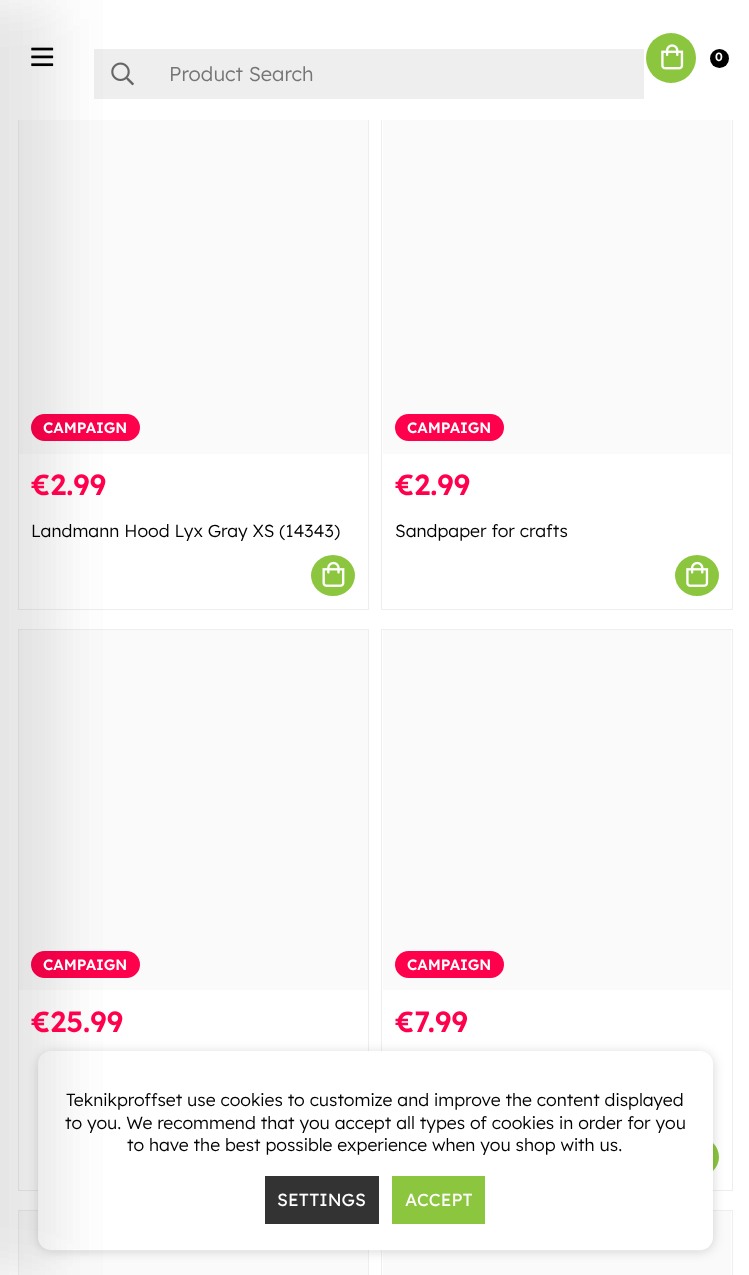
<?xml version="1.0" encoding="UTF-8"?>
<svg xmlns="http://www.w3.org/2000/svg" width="749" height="1275">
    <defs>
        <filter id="blur1" x="-50%" y="-200%" width="200%" height="500%"><feGaussianBlur stdDeviation="6"/></filter>
        <filter id="blur2" x="-50%" y="-200%" width="200%" height="500%"><feGaussianBlur stdDeviation="28"/></filter>
    </defs>
    <rect width="100%" height="100%" fill="#FFFFFF"/>
    <rect x="18.5" y="91.5" width="350" height="518" fill="none" stroke="#EEEEEE"/>
    <rect x="381.5" y="91.5" width="351" height="518" fill="none" stroke="#EEEEEE"/>
    <rect x="18" y="91" width="715" height="29" fill="#FFFFFF"/>
    <image x="31" y="47" width="23" height="20" href="img_01.png"/>
    <circle cx="671" cy="58" r="25" fill="#8CC63F"/>
    <image x="661" y="44" width="23" height="26" href="img_02.png"/>
    <circle cx="719.5" cy="58.5" r="9.5" fill="#000000"/>
    <text x="715" y="61" font-family="Lexend" font-size="12" font-weight="600" fill="#FFFFFF">0</text>
    <rect x="94" y="49" width="550" height="50" fill="#EEEEEE"/>
    <image x="111" y="62" width="23" height="24" href="img_03.png"/>
    <text x="169" y="81" font-family="Lexend" font-size="20" fill="#757575">Product Search</text>
    <rect x="19" y="120" width="349" height="334" fill="#FAFAFA"/>
    <rect x="31" y="414" width="109" height="27" rx="13.5" fill="#FF004C"/>
    <rect x="18.5" y="629.5" width="350" height="561" fill="none" stroke="#EEEEEE"/>
    <rect x="19" y="630" width="349" height="360" fill="#FAFAFA"/>
    <rect x="31" y="951" width="109" height="27" rx="13.5" fill="#FF004C"/>
    <rect x="18.5" y="1210.5" width="350" height="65" fill="none" stroke="#EEEEEE"/>
    <rect x="19" y="1211" width="349" height="64" fill="#FAFAFA"/>
    <rect x="381.5" y="629.5" width="351" height="561" fill="none" stroke="#EEEEEE"/>
    <ellipse cx="697" cy="1157" rx="22" ry="20.5" fill="#8CC63F"/>
    <rect x="381.5" y="1210.5" width="351" height="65" fill="none" stroke="#EEEEEE"/>
    <rect x="383" y="1211" width="348" height="64" fill="#FAFAFA"/>
    <rect x="38" y="1053" width="675" height="198" rx="13" fill="#212326" fill-opacity="0.17" filter="url(#blur1)"/>
    <rect x="38" y="1051" width="675" height="199" rx="13" fill="#FFFFFF"/>
    <rect x="-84" y="0" width="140" height="1275" fill="#000000" fill-opacity="0.05" filter="url(#blur2)"/>
    <rect x="-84" y="0" width="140" height="1275" fill="#000000" fill-opacity="0.05" filter="url(#blur2)"/>
    <text x="43" y="433" font-family="Lexend" font-size="15" font-weight="600" fill="#FFFFFF">CAMPAIGN</text>
    <text x="31" y="495" font-family="Lexend" font-size="29" font-weight="600" fill="#FF004C">€2.99</text>
    <text x="31" y="537" font-family="Lexend" font-size="17.5" fill="#000000">Landmann Hood Lyx Gray XS (14343)</text>
    <ellipse cx="333" cy="575.5" rx="22" ry="20.5" fill="#8CC63F"/>
    <image x="322" y="561" width="23" height="26" href="img_04.png"/>
    <rect x="383" y="120" width="348" height="334" fill="#FAFAFA"/>
    <rect x="395" y="414" width="109" height="27" rx="13.5" fill="#FF004C"/>
    <text x="407" y="433" font-family="Lexend" font-size="15" font-weight="600" fill="#FFFFFF">CAMPAIGN</text>
    <text x="395" y="495" font-family="Lexend" font-size="29" font-weight="600" fill="#FF004C">€2.99</text>
    <text x="395" y="537" font-family="Lexend" font-size="17.5" fill="#000000">Sandpaper for crafts</text>
    <ellipse cx="697" cy="575.5" rx="22" ry="20.5" fill="#8CC63F"/>
    <image x="686" y="561" width="23" height="26" href="img_05.png"/>
    <text x="43" y="970" font-family="Lexend" font-size="15" font-weight="600" fill="#FFFFFF">CAMPAIGN</text>
    <text x="31" y="1032" font-family="Lexend" font-size="29" font-weight="600" fill="#FF004C">€25.99</text>
    <rect x="383" y="630" width="348" height="360" fill="#FAFAFA"/>
    <rect x="395" y="951" width="109" height="27" rx="13.5" fill="#FF004C"/>
    <text x="407" y="970" font-family="Lexend" font-size="15" font-weight="600" fill="#FFFFFF">CAMPAIGN</text>
    <text x="395" y="1032" font-family="Lexend" font-size="29" font-weight="600" fill="#FF004C">€7.99</text>
    <text x="66" y="1106" font-family="Lexend" font-size="17.5" fill="#000000">Teknikproffset use cookies to customize and improve the content displayed</text>
    <text x="65" y="1129" font-family="Lexend" font-size="17.5" fill="#000000">to you. We recommend that you accept all types of cookies in order for you</text>
    <text x="127" y="1151" font-family="Lexend" font-size="17.5" fill="#000000">to have the best possible experience when you shop with us.</text>
    <rect x="265" y="1176" width="114" height="48" fill="#333333"/>
    <text x="277" y="1206" font-family="Lexend" font-size="17.5" font-weight="500" fill="#FFFFFF">SETTINGS</text>
    <rect x="392" y="1176" width="93" height="48" fill="#8CC63F"/>
    <text x="405" y="1206" font-family="Lexend" font-size="17.5" font-weight="500" fill="#FFFFFF">ACCEPT</text>
</svg>
